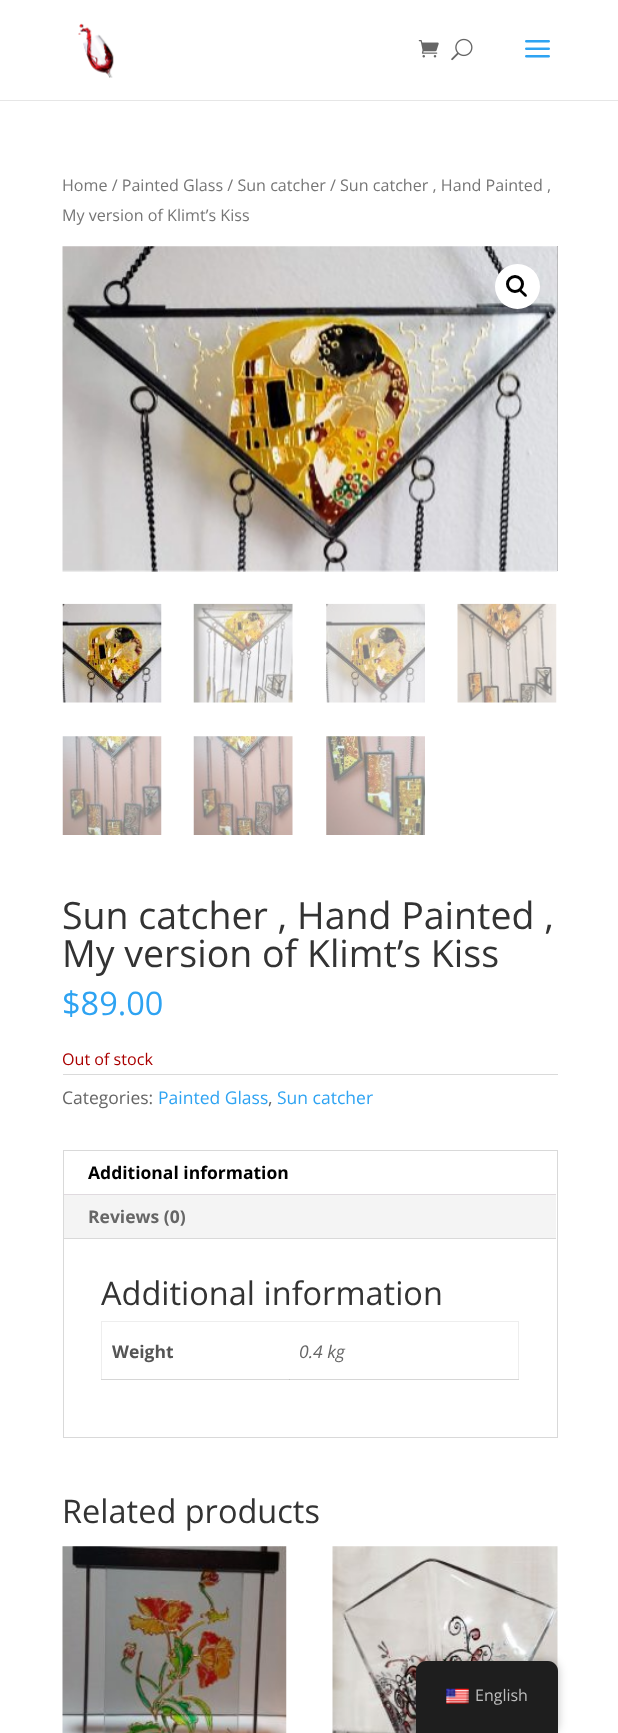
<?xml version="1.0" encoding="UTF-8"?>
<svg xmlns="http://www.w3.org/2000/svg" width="618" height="1733">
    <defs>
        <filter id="blur1" x="-50%" y="-200%" width="200%" height="500%"><feGaussianBlur stdDeviation="5"/></filter>
    </defs>
    <rect width="100%" height="100%" fill="#FFFFFF"/>
    <path d="M 0 100 V 101 H 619 V 1 V 100 Z" fill="#E6E6E6"/>
    <image x="78" y="23" width="36" height="55" href="img_01.png"/>
    <image x="418" y="40" width="21" height="18" href="img_02.png"/>
    <image x="451" y="38" width="22" height="23" href="img_03.png"/>
    <image x="525" y="40" width="25" height="18" href="img_04.png"/>
    <text font-family="Open Sans" font-size="16.1" fill="#767676">
        <tspan x="62" y="191">Home / Painted Glass / Sun catcher / Sun catcher , Hand Painted ,</tspan>
        <tspan x="62" y="221">My version of Klimt’s Kiss</tspan>
    </text>
    <image x="557" y="246" width="1" height="325" href="img_06.png"/>
    <image x="62" y="246" width="496" height="326" href="img_05.png"/>
    <circle cx="517.5" cy="286.5" r="22.5" fill="#FFFFFF"/>
    <circle cx="515" cy="284" r="7.5" fill="none" stroke="#000000" stroke-width="3"/>
    <path d="M 519.5 289.5 C 521 288 523 291.5 524 292 C 525 293 528 295 526.5 296.5 C 525 298 523 294.5 522 294 C 521.5 293 518 291 519.5 289.5 Z" fill="#000000"/>
    <image x="62" y="603" width="100" height="100" href="img_07.png"/>
    <image x="193" y="603" width="100" height="100" href="img_08.png"/>
    <image x="326" y="603" width="99" height="100" href="img_09.png"/>
    <image x="457" y="603" width="100" height="100" href="img_10.png"/>
    <image x="62" y="736" width="100" height="99" href="img_11.png"/>
    <image x="193" y="736" width="100" height="99" href="img_12.png"/>
    <image x="326" y="736" width="99" height="99" href="img_13.png"/>
    <text font-family="Open Sans" font-size="37.5" fill="#333333">
        <tspan x="62" y="929">Sun catcher , Hand Painted ,</tspan>
        <tspan x="62" y="967">My version of Klimt’s Kiss</tspan>
    </text>
    <text x="62" y="1015" font-family="Open Sans" font-size="32.5" fill="#2EA3F2">$89.00</text>
    <text x="62" y="1065" font-family="Open Sans" font-size="16.1" fill="#AA0000">Out of stock</text>
    <rect x="63" y="1074" width="495" height="1" fill="#DADADA"/>
    <text x="62" y="1104" font-family="Open Sans" font-size="17.5" fill="#666666">Categories:</text>
    <text x="158" y="1104" font-family="Open Sans" font-size="17.5" fill="#2EA3F2">Painted Glass</text>
    <text x="268" y="1104" font-family="Open Sans" font-size="17.5" fill="#666666">,</text>
    <text x="277" y="1104" font-family="Open Sans" font-size="17.5" fill="#2EA3F2">Sun catcher</text>
    <rect x="63.5" y="1150.5" width="494" height="287" fill="none" stroke="#D9D9D9"/>
    <rect x="64" y="1195" width="492" height="43" fill="#F4F4F4"/>
    <rect x="64" y="1194" width="492" height="1" fill="#E0DADF"/>
    <text x="88" y="1179" font-family="Open Sans" font-size="17.5" font-weight="700" fill="#000000">Additional information</text>
    <text x="88" y="1223" font-family="Open Sans" font-size="17.5" font-weight="700" fill="#666666">Reviews (0)</text>
    <rect x="64" y="1238" width="492" height="1" fill="#D9D9D9"/>
    <text x="101" y="1305" font-family="Open Sans" font-size="32.5" fill="#333333">Additional information</text>
    <rect x="101" y="1321" width="418" height="1" fill="#EEEEEE"/>
    <rect x="518" y="1321" width="1" height="59" fill="#EEEEEE"/>
    <rect x="101" y="1379" width="418" height="1" fill="#D6D6D6"/>
    <rect x="101" y="1321" width="1" height="59" fill="#EEEEEE"/>
    <rect x="101" y="1379" width="1" height="1" fill="#D6D6D6"/>
    <text x="112" y="1358" font-family="Open Sans" font-size="17.5" font-weight="700" fill="#555555">Weight</text>
    <rect x="289" y="1379" width="1" height="1" fill="#C1C1C1"/>
    <text x="299" y="1358" font-family="Open Sans" font-size="17.5" font-style="italic" fill="#666666">0.4 kg</text>
    <text x="62" y="1523" font-family="Open Sans" font-size="32.5" fill="#333333">Related products</text>
    <image x="62" y="1546" width="225" height="187" href="img_14.png"/>
    <image x="332" y="1546" width="226" height="187" href="img_15.png"/>
    <rect x="416" y="1661" width="142" height="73" rx="10" fill="#000000" fill-opacity="0.25" filter="url(#blur1)"/>
    <path d="M 426 1661 H 548 C 553.5 1661 558 1665.5 558 1671 V 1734 H 416 V 1671 C 416 1665.5 420.5 1661 426 1661 Z" fill="#1E1E1E"/>
    <image x="446" y="1688" width="23" height="16" href="img_16.png"/>
    <text x="475" y="1701" font-family="Open Sans" font-size="16" fill="#BDBDBD">English</text>
</svg>
